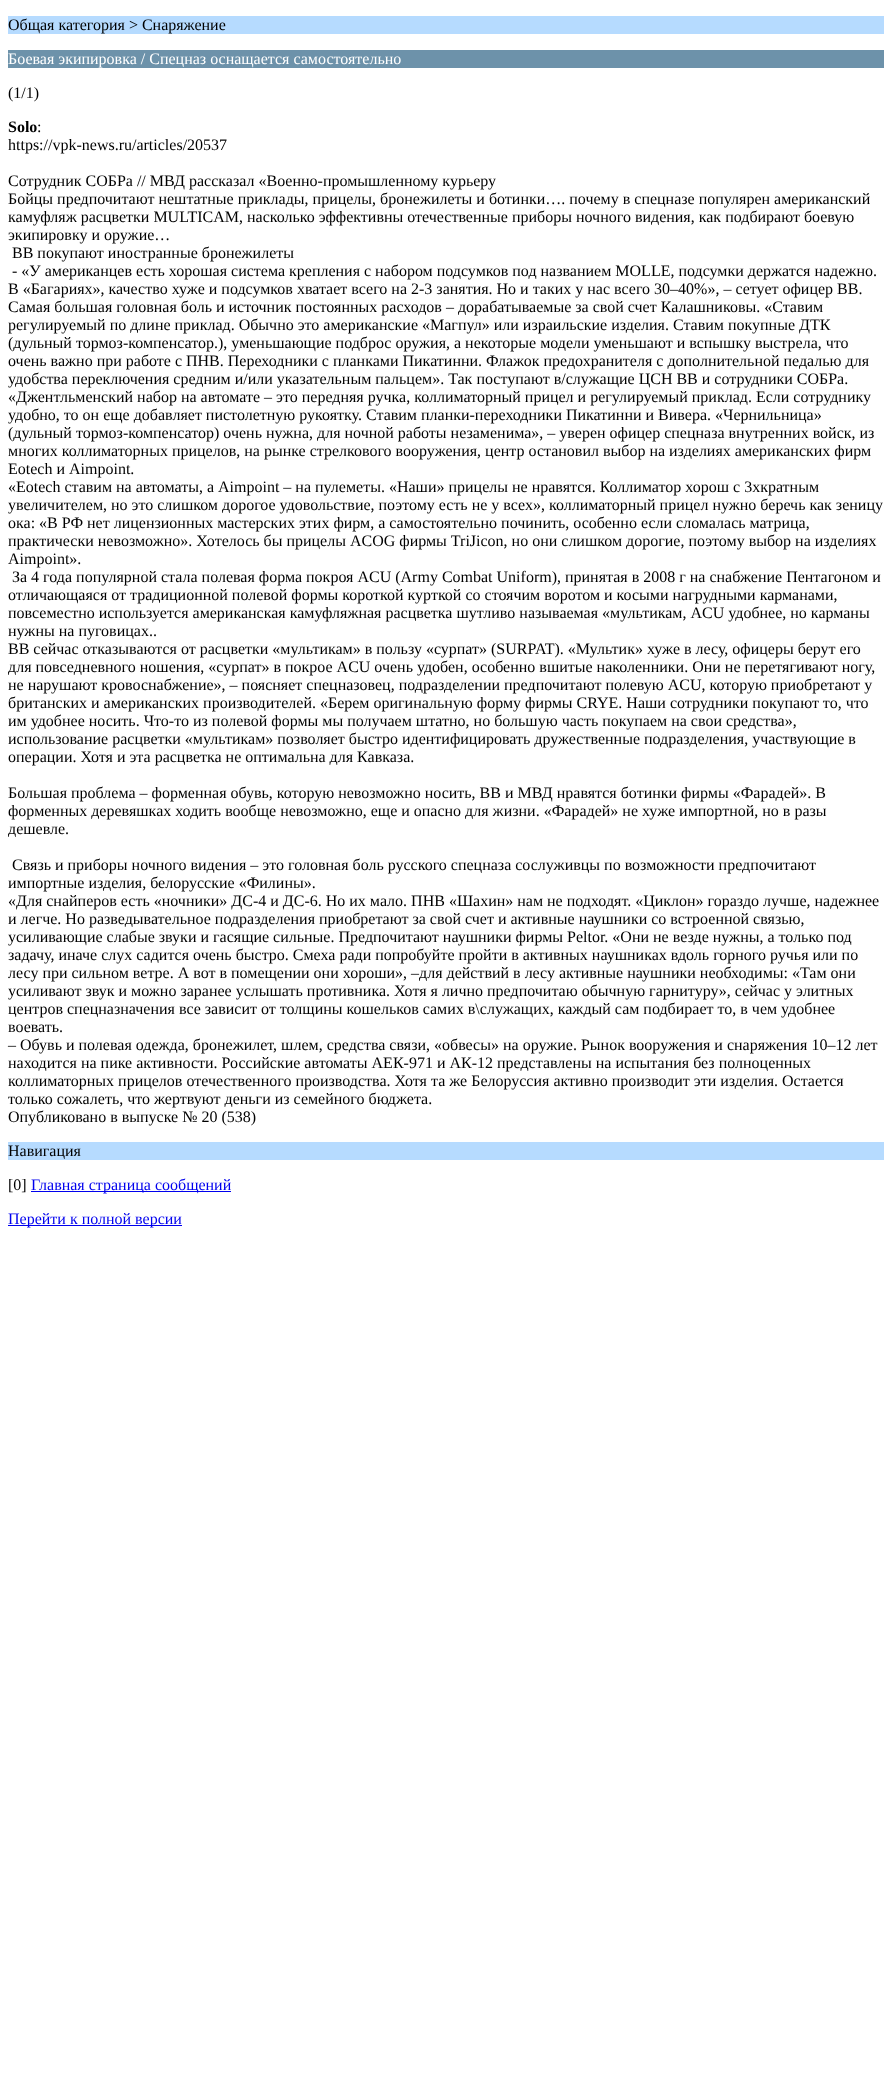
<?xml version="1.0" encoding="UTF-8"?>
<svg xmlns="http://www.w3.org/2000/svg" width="892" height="2094">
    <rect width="100%" height="100%" fill="#FFFFFF"/>
    <rect x="8" y="16" width="876" height="18" fill="#B6DBFF"/>
    <text x="8" y="30" font-family="Liberation Serif" font-size="16" fill="#000000">Общая категория &gt; Снаряжение</text>
    <rect x="8" y="50" width="876" height="18" fill="#6D92AA"/>
    <text x="8" y="64" font-family="Liberation Serif" font-size="16" fill="#FFFFFF">Боевая экипировка / Спецназ оснащается самостоятельно</text>
    <text x="8" y="98" font-family="Liberation Serif" font-size="16" fill="#000000">(1/1)</text>
    <text x="8" y="132" font-family="Liberation Serif" font-size="16" font-weight="700" fill="#000000">Solo</text>
    <text x="37" y="132" font-family="Liberation Serif" font-size="16" fill="#000000">:</text>
    <text x="8" y="150" font-family="Liberation Serif" font-size="16" fill="#000000">https://vpk-news.ru/articles/20537</text>
    <text font-family="Liberation Serif" font-size="16" fill="#000000">
        <tspan x="8" y="186">Сотрудник СОБРа // МВД рассказал «Военно-промышленному курьеру</tspan>
        <tspan x="8" y="204">Бойцы предпочитают нештатные приклады, прицелы, бронежилеты и ботинки…. почему в спецназе популярен американский</tspan>
        <tspan x="8" y="222">камуфляж расцветки MULTICAM, насколько эффективны отечественные приборы ночного видения, как подбирают боевую</tspan>
        <tspan x="8" y="240">экипировку и оружие…</tspan>
    </text>
    <text font-family="Liberation Serif" font-size="16" fill="#000000">
        <tspan x="12" y="258">ВВ покупают иностранные бронежилеты</tspan>
        <tspan x="12" y="276">- «У американцев есть хорошая система крепления c набором подсумков под названием MOLLE, подсумки держатся надежно.</tspan>
    </text>
    <text font-family="Liberation Serif" font-size="16" fill="#000000">
        <tspan x="8" y="294">В «Багариях», качество хуже и подсумков хватает всего на 2-3 занятия. Но и таких у нас всего 30–40%», – сетует офицер ВВ.</tspan>
        <tspan x="8" y="312">Самая большая головная боль и источник постоянных расходов – дорабатываемые за свой счет Калашниковы. «Ставим</tspan>
        <tspan x="8" y="330">регулируемый по длине приклад. Обычно это американские «Магпул» или израильские изделия. Ставим покупные ДТК</tspan>
        <tspan x="8" y="348">(дульный тормоз-компенсатор.), уменьшающие подброс оружия, а некоторые модели уменьшают и вспышку выстрела, что</tspan>
        <tspan x="8" y="366">очень важно при работе с ПНВ. Переходники с планками Пикатинни. Флажок предохранителя с дополнительной педалью для</tspan>
        <tspan x="8" y="384">удобства переключения средним и/или указательным пальцем». Так поступают в/служащие ЦСН ВВ и сотрудники СОБРа.</tspan>
        <tspan x="8" y="402">«Джентльменский набор на автомате – это передняя ручка, коллиматорный прицел и регулируемый приклад. Если сотруднику</tspan>
        <tspan x="8" y="420">удобно, то он еще добавляет пистолетную рукоятку. Ставим планки-переходники Пикатинни и Вивера. «Чернильница»</tspan>
        <tspan x="8" y="438">(дульный тормоз-компенсатор) очень нужна, для ночной работы незаменима», – уверен офицер спецназа внутренних войск, из</tspan>
        <tspan x="8" y="456">многих коллиматорных прицелов, на рынке стрелкового вооружения, центр остановил выбор на изделиях американских фирм</tspan>
        <tspan x="8" y="474">Eotech и Aimpoint.</tspan>
        <tspan x="8" y="492">«Eotech ставим на автоматы, а Aimpoint – на пулеметы. «Наши» прицелы не нравятся. Коллиматор хорош с 3хкратным</tspan>
        <tspan x="8" y="510">увеличителем, но это слишком дорогое удовольствие, поэтому есть не у всех», коллиматорный прицел нужно беречь как зеницу</tspan>
        <tspan x="8" y="528">ока: «В РФ нет лицензионных мастерских этих фирм, а самостоятельно починить, особенно если сломалась матрица,</tspan>
        <tspan x="8" y="546">практически невозможно». Хотелось бы прицелы ACOG фирмы TriJicon, но они слишком дорогие, поэтому выбор на изделиях</tspan>
        <tspan x="8" y="564">Aimpoint».</tspan>
    </text>
    <text x="12" y="582" font-family="Liberation Serif" font-size="16" fill="#000000">За 4 года популярной стала полевая форма покроя ACU (Army Combat Uniform), принятая в 2008 г на снабжение Пентагоном и</text>
    <text font-family="Liberation Serif" font-size="16" fill="#000000">
        <tspan x="8" y="600">отличающаяся от традиционной полевой формы короткой курткой со стоячим воротом и косыми нагрудными карманами,</tspan>
        <tspan x="8" y="618">повсеместно используется американская камуфляжная расцветка шутливо называемая «мультикам, ACU удобнее, но карманы</tspan>
        <tspan x="8" y="636">нужны на пуговицах..</tspan>
        <tspan x="8" y="654">ВВ сейчас отказываются от расцветки «мультикам» в пользу «сурпат» (SURPAT). «Мультик» хуже в лесу, офицеры берут его</tspan>
        <tspan x="8" y="672">для повседневного ношения, «сурпат» в покрое ACU очень удобен, особенно вшитые наколенники. Они не перетягивают ногу,</tspan>
        <tspan x="8" y="690">не нарушают кровоснабжение», – поясняет спецназовец, подразделении предпочитают полевую ACU, которую приобретают у</tspan>
        <tspan x="8" y="708">британских и американских производителей. «Берем оригинальную форму фирмы CRYE. Наши сотрудники покупают то, что</tspan>
        <tspan x="8" y="726">им удобнее носить. Что-то из полевой формы мы получаем штатно, но большую часть покупаем на свои средства»,</tspan>
        <tspan x="8" y="744">использование расцветки «мультикам» позволяет быстро идентифицировать дружественные подразделения, участвующие в</tspan>
        <tspan x="8" y="762">операции. Хотя и эта расцветка не оптимальна для Кавказа.</tspan>
    </text>
    <text font-family="Liberation Serif" font-size="16" fill="#000000">
        <tspan x="8" y="798">Большая проблема – форменная обувь, которую невозможно носить, ВВ и МВД нравятся ботинки фирмы «Фарадей». В</tspan>
        <tspan x="8" y="816">форменных деревяшках ходить вообще невозможно, еще и опасно для жизни. «Фарадей» не хуже импортной, но в разы</tspan>
        <tspan x="8" y="834">дешевле.</tspan>
    </text>
    <text x="12" y="870" font-family="Liberation Serif" font-size="16" fill="#000000">Связь и приборы ночного видения – это головная боль русского спецназа сослуживцы по возможности предпочитают</text>
    <text font-family="Liberation Serif" font-size="16" fill="#000000">
        <tspan x="8" y="888">импортные изделия, белорусские «Филины».</tspan>
        <tspan x="8" y="906">«Для снайперов есть «ночники» ДС-4 и ДС-6. Но их мало. ПНВ «Шахин» нам не подходят. «Циклон» гораздо лучше, надежнее</tspan>
        <tspan x="8" y="924">и легче. Но разведывательное подразделения приобретают за свой счет и активные наушники со встроенной связью,</tspan>
        <tspan x="8" y="942">усиливающие слабые звуки и гасящие сильные. Предпочитают наушники фирмы Peltor. «Они не везде нужны, а только под</tspan>
        <tspan x="8" y="960">задачу, иначе слух садится очень быстро. Смеха ради попробуйте пройти в активных наушниках вдоль горного ручья или по</tspan>
        <tspan x="8" y="978">лесу при сильном ветре. А вот в помещении они хороши», –для действий в лесу активные наушники необходимы: «Там они</tspan>
        <tspan x="8" y="996">усиливают звук и можно заранее услышать противника. Хотя я лично предпочитаю обычную гарнитуру», сейчас у элитных</tspan>
        <tspan x="8" y="1014">центров спецназначения все зависит от толщины кошельков самих в\служащих, каждый сам подбирает то, в чем удобнее</tspan>
        <tspan x="8" y="1032">воевать.</tspan>
        <tspan x="8" y="1050">– Обувь и полевая одежда, бронежилет, шлем, средства связи, «обвесы» на оружие. Рынок вооружения и снаряжения 10–12 лет</tspan>
        <tspan x="8" y="1068">находится на пике активности. Российские автоматы АЕК-971 и АК-12 представлены на испытания без полноценных</tspan>
        <tspan x="8" y="1086">коллиматорных прицелов отечественного производства. Хотя та же Белоруссия активно производит эти изделия. Остается</tspan>
        <tspan x="8" y="1104">только сожалеть, что жертвуют деньги из семейного бюджета.</tspan>
        <tspan x="8" y="1122">Опубликовано в выпуске № 20 (538)</tspan>
    </text>
    <rect x="8" y="1142" width="876" height="18" fill="#B6DBFF"/>
    <text x="8" y="1156" font-family="Liberation Serif" font-size="16" fill="#000000">Навигация</text>
    <text x="8" y="1190" font-family="Liberation Serif" font-size="16" fill="#000000">[0]</text>
    <rect x="31" y="1191" width="200" height="1" fill="#0000EE"/>
    <text x="31" y="1190" font-family="Liberation Serif" font-size="16" fill="#0000EE">Главная страница сообщений</text>
    <rect x="8" y="1225" width="174" height="1" fill="#0000EE"/>
    <text x="8" y="1224" font-family="Liberation Serif" font-size="16" fill="#0000EE">Перейти к полной версии</text>
</svg>
